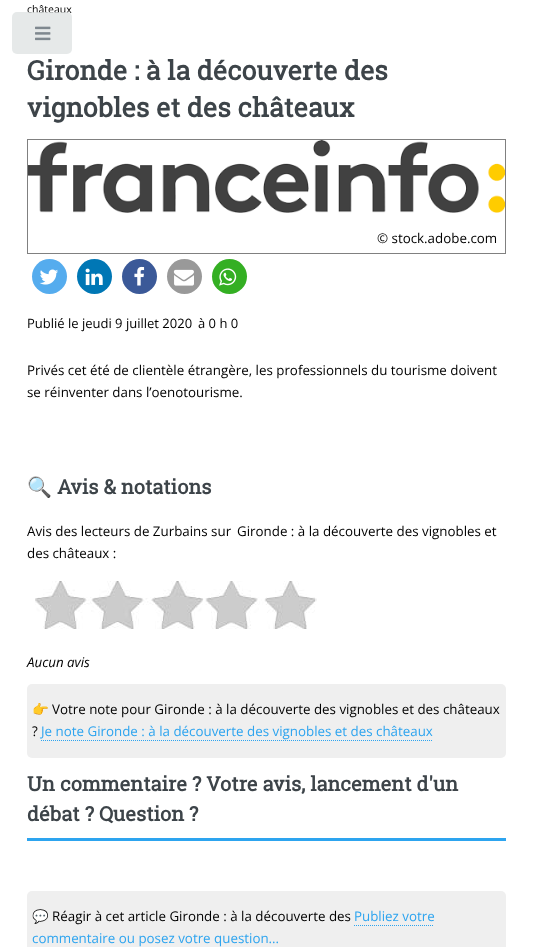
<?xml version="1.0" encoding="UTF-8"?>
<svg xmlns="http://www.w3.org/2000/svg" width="533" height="947">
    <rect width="100%" height="100%" fill="#FFFFFF"/>
    <text x="27" y="13" font-family="Open Sans" font-size="10.5" fill="#000000">châteaux</text>
    <text font-family="Roboto Slab" font-size="26.7" font-weight="700" fill="#3D4449">
        <tspan x="27" y="80">Gironde : à la découverte des</tspan>
        <tspan x="27" y="117">vignobles et des châteaux</tspan>
    </text>
    <rect x="27.5" y="139.5" width="478" height="114" fill="none" stroke="#808080"/>
    <image x="28" y="140" width="477" height="73" href="img_01.png"/>
    <text x="377" y="243" font-family="Open Sans" font-size="13.35" fill="#000000">© stock.adobe.com</text>
    <circle cx="49.5" cy="276.5" r="17.5" fill="#55ACEE"/>
    <image x="39" y="269" width="19" height="16" href="img_02.png"/>
    <circle cx="94.5" cy="276.5" r="17.5" fill="#0077B5"/>
    <image x="85" y="268" width="18" height="18" href="img_03.png"/>
    <circle cx="139.5" cy="276.5" r="17.5" fill="#3B5998"/>
    <image x="134" y="266" width="11" height="20" href="img_04.png"/>
    <circle cx="184.5" cy="276.5" r="17.5" fill="#999999"/>
    <image x="173" y="269" width="21" height="17" href="img_05.png"/>
    <circle cx="229.5" cy="276.5" r="17.5" fill="#34AF23"/>
    <image x="219" y="268" width="18" height="18" href="img_06.png"/>
    <text x="27" y="328" font-family="Open Sans" font-size="13" fill="#000000">Publié le jeudi 9 juillet 2020</text>
    <text x="198" y="328" font-family="Open Sans" font-size="13" fill="#000000">à 0 h 0</text>
    <text font-family="Open Sans" font-size="13.35" fill="#000000">
        <tspan x="27" y="375">Privés cet été de clientèle étrangère, les professionnels du tourisme doivent</tspan>
        <tspan x="27" y="397">se réinventer dans l’oenotourisme.</tspan>
    </text>
    <text x="27" y="494" font-family="Noto Color Emoji" font-size="20" font-weight="700" fill="#3D4449">🔍</text>
    <text x="57" y="494" font-family="Roboto Slab" font-size="20" font-weight="700" fill="#3D4449">Avis &amp; notations</text>
    <text x="27" y="536" font-family="Open Sans" font-size="13.35" fill="#000000">Avis des lecteurs de Zurbains sur</text>
    <text x="237" y="536" font-family="Open Sans" font-size="13.35" fill="#000000">Gironde : à la découverte des vignobles et</text>
    <text x="27" y="558" font-family="Open Sans" font-size="13.35" fill="#000000">des châteaux :</text>
    <image x="35" y="581" width="282" height="48" href="img_07.png"/>
    <text x="27" y="667" font-family="Open Sans" font-size="13.35" font-style="italic" fill="#000000">Aucun avis</text>
    <rect x="27" y="684" width="479" height="74" rx="5" fill="#EFEFEF"/>
    <text x="32" y="714" font-family="Noto Color Emoji" font-size="13.35" fill="#000000">👉</text>
    <text x="52" y="714" font-family="Open Sans" font-size="13.35" fill="#000000">Votre note pour Gironde : à la découverte des vignobles et des châteaux</text>
    <text x="32" y="736" font-family="Open Sans" font-size="13.35" fill="#000000">?</text>
    <text x="41" y="736" font-family="Open Sans" font-size="13.35" fill="#2DA4EF">Je note Gironde : à la découverte des vignobles et des châteaux</text>
    <path d="M 41 740.5 H 432" fill="none" stroke="#2DA4EF" stroke-dasharray="1 1"/>
    <rect x="27" y="838" width="479" height="3" fill="#2DA4EF"/>
    <text font-family="Roboto Slab" font-size="20" font-weight="700" fill="#3D4449">
        <tspan x="27" y="791">Un commentaire ? Votre avis, lancement d'un</tspan>
        <tspan x="27" y="821">débat ? Question ?</tspan>
    </text>
    <rect x="27" y="891" width="479" height="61" rx="5" fill="#EFEFEF"/>
    <text x="32" y="921" font-family="Noto Color Emoji" font-size="13.35" fill="#000000">💬</text>
    <text x="52" y="921" font-family="Open Sans" font-size="13.35" fill="#000000">Réagir à cet article Gironde : à la découverte des</text>
    <text x="354" y="921" font-family="Open Sans" font-size="13.35" fill="#2DA4EF">Publiez votre</text>
    <path d="M 354 925.5 H 434" fill="none" stroke="#2DA4EF" stroke-dasharray="1 1"/>
    <text x="32" y="943" font-family="Open Sans" font-size="13.35" fill="#2DA4EF">commentaire ou posez votre question...</text>
    <rect x="12" y="12" width="60" height="42" rx="5" fill="#DEE1E2" fill-opacity="0.75"/>
    <image x="35" y="26" width="16" height="15" href="img_08.png"/>
</svg>
